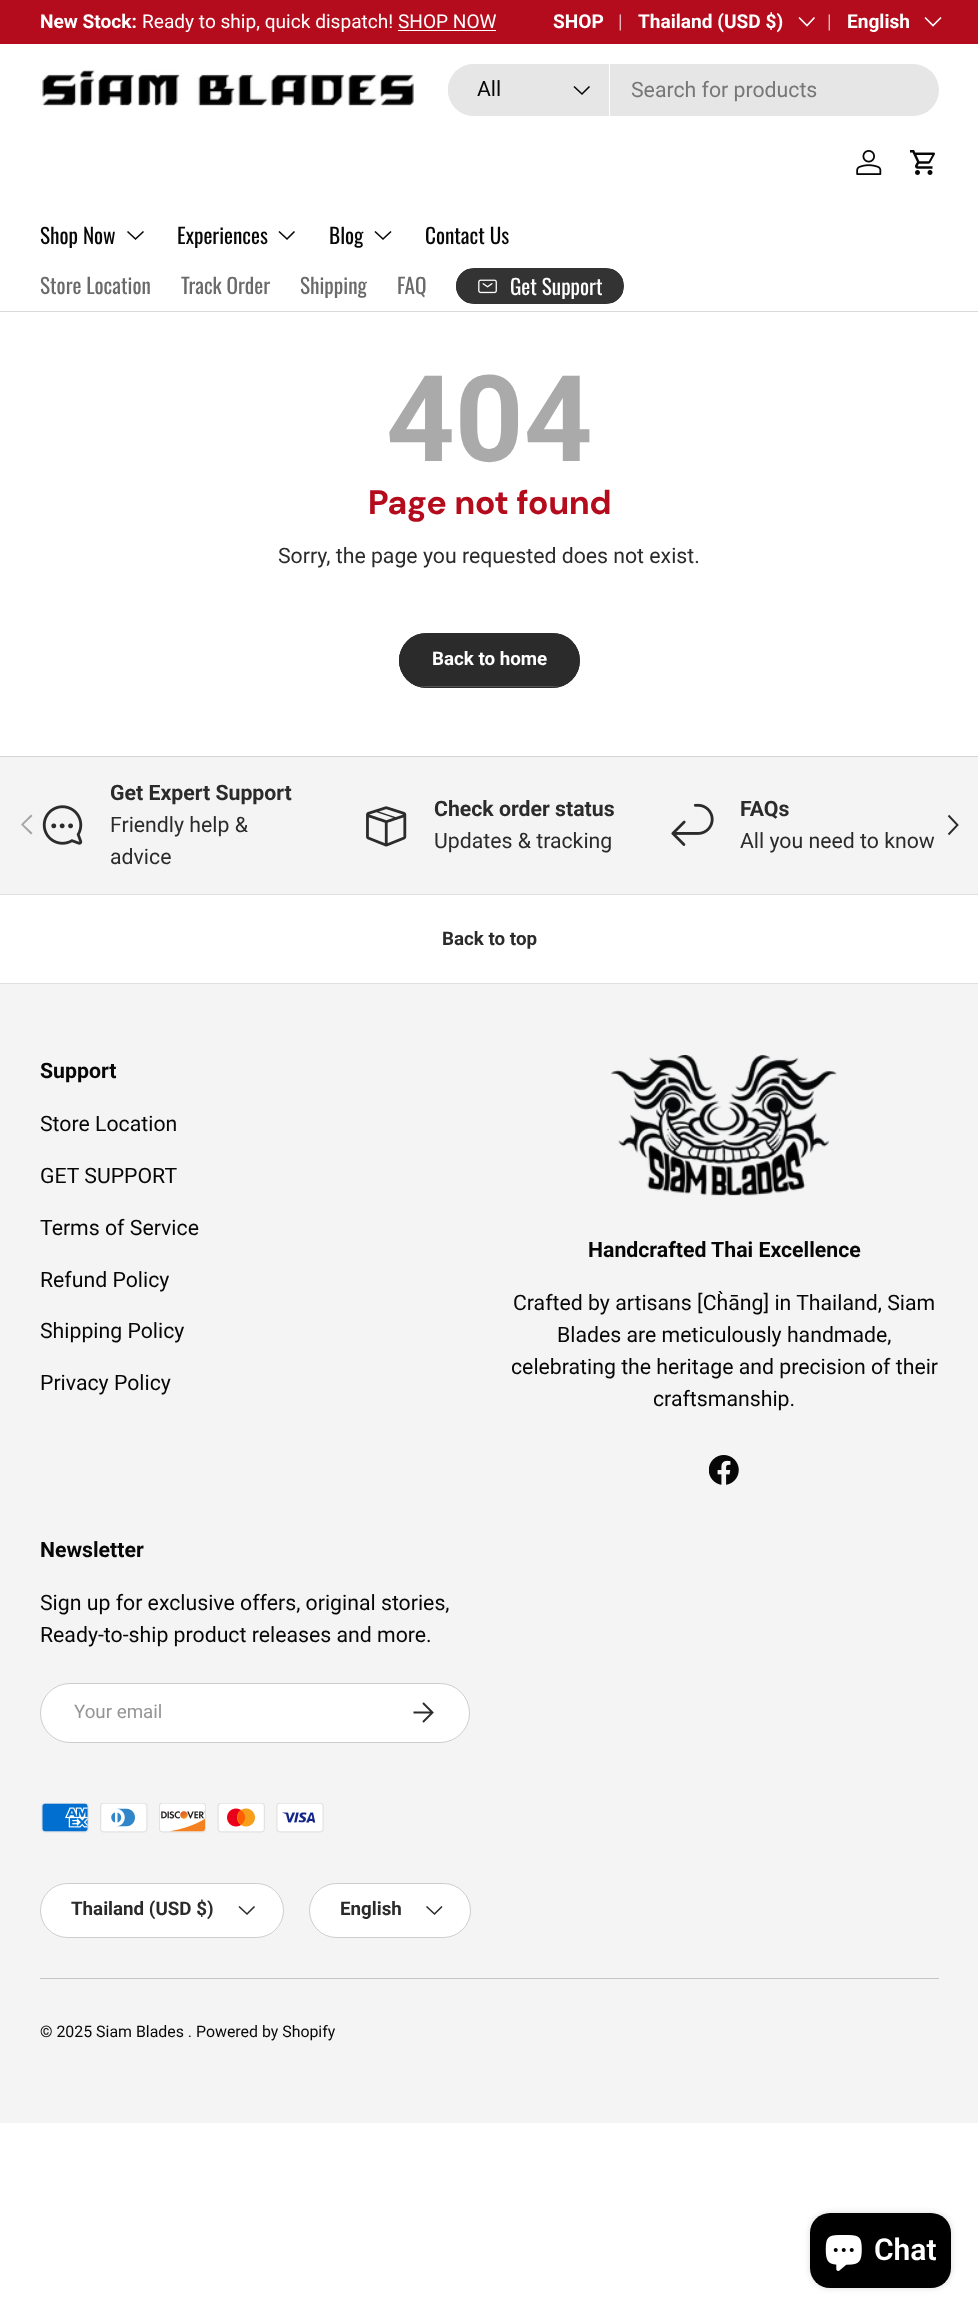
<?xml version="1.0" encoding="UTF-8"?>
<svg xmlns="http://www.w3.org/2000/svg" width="978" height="2313">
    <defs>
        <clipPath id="clip1"><rect x="456" y="268" width="168" height="36" rx="18"/></clipPath>
        <linearGradient id="g1" gradientUnits="userSpaceOnUse" x1="138" y1="227" x2="612" y2="345"><stop offset="0.6" stop-color="#5A5A5A"/><stop offset="0.6" stop-color="#333333"/><stop offset="1" stop-color="#333333"/></linearGradient>
        <clipPath id="clip2"><rect x="399" y="633" width="181" height="55" rx="27.5"/></clipPath>
        <linearGradient id="g2" gradientUnits="userSpaceOnUse" x1="52" y1="596" x2="569" y2="724"><stop offset="0.6" stop-color="#525352"/><stop offset="0.6" stop-color="#2A2B2A"/><stop offset="1" stop-color="#2A2B2A"/></linearGradient>
        <filter id="blur1" x="-50%" y="-200%" width="200%" height="500%"><feGaussianBlur stdDeviation="3"/></filter>
    </defs>
    <rect width="100%" height="100%" fill="#FFFFFF"/>
    <rect x="0" y="0" width="978" height="44" fill="#B40C1C"/>
    <text x="40" y="28" font-family="Roboto" font-size="19.1" font-weight="700" fill="#FFFFFF">New Stock:</text>
    <text x="142" y="28" font-family="Roboto" font-size="19.1" fill="#FFFFFF">Ready to ship, quick dispatch! SHOP NOW</text>
    <rect x="398" y="30" width="98" height="1" fill="#FFFFFF"/>
    <text x="553" y="28" font-family="Roboto" font-size="19.1" font-weight="700" fill="#FFFFFF">SHOP</text>
    <text x="618" y="28" font-family="Roboto" font-size="19.1" fill="#E9B6BB">|</text>
    <text x="638" y="28" font-family="Roboto" font-size="19.1" font-weight="700" fill="#FFFFFF">Thailand (USD $)</text>
    <path d="M 814.5 17.5 L 807 25.5 L 799 17.5" fill="none" stroke="#FFFFFF" stroke-width="1.6"/>
    <text x="827" y="28" font-family="Roboto" font-size="19.1" fill="#E9B6BB">|</text>
    <text x="847" y="28" font-family="Roboto" font-size="19.1" font-weight="700" fill="#FFFFFF">English</text>
    <path d="M 941 17.5 L 933 25.5 L 925 17.5" fill="none" stroke="#FFFFFF" stroke-width="1.6"/>
    <rect x="0" y="311" width="978" height="1" fill="#DADADA"/>
    <image x="40" y="70" width="374" height="36" href="img_01.png"/>
    <rect x="448" y="64" width="491" height="52" rx="26" fill="#E6E6E6"/>
    <path d="M 474 64 H 610 V 116 H 474 C 459.5 116 448 104.5 448 90 C 448 75.5 459.5 64 474 64 Z" fill="#E6E6E6"/>
    <rect x="609" y="64" width="1" height="52" fill="#FFFFFF"/>
    <text x="477" y="96" font-family="Roboto" font-size="21.25" fill="#070707">All</text>
    <path d="M 589.5 86.5 L 582 94 L 574 86.5" fill="none" stroke="#070707" stroke-width="1.6"/>
    <text x="631" y="97" font-family="Roboto" font-size="21.25" fill="#777777">Search for products</text>
    <image x="856" y="150" width="26" height="25" href="img_02.png"/>
    <image x="910" y="150" width="25" height="25" href="img_03.png"/>
    <text x="40" y="244" font-family="Oswald" font-size="21.25" fill="#070707">Shop Now</text>
    <path d="M 143.5 231.5 L 135.5 239 L 127.5 231.5" fill="none" stroke="#070707" stroke-width="1.6"/>
    <text x="177" y="244" font-family="Oswald" font-size="21.25" fill="#070707">Experiences</text>
    <path d="M 294.5 231.5 L 287 239 L 279 231.5" fill="none" stroke="#070707" stroke-width="1.6"/>
    <text x="329" y="244" font-family="Oswald" font-size="21.25" fill="#070707">Blog</text>
    <path d="M 391 231.5 L 383 239 L 375 231.5" fill="none" stroke="#070707" stroke-width="1.6"/>
    <text x="425" y="244" font-family="Oswald" font-size="21.25" fill="#070707">Contact Us</text>
    <text x="40" y="294" font-family="Oswald" font-size="21.25" fill="#6A6A6A">Store Location</text>
    <text x="181" y="294" font-family="Oswald" font-size="21.25" fill="#6A6A6A">Track Order</text>
    <text x="300" y="294" font-family="Oswald" font-size="21.25" fill="#6A6A6A">Shipping</text>
    <text x="397" y="294" font-family="Oswald" font-size="21.25" fill="#6A6A6A">FAQ</text>
    <g clip-path="url(#clip1)">
        <rect x="456" y="269" width="167" height="34" fill="url(#g1)"/>
    </g>
    <rect x="456.5" y="268.5" width="167" height="35" rx="17.5" fill="none" stroke="#333333"/>
    <image x="478" y="279" width="19" height="15" href="img_04.png"/>
    <text x="510" y="295" font-family="Oswald" font-size="21.25" fill="#FFFFFF">Get Support</text>
    <text x="386" y="461" font-family="Roboto" font-size="120" font-weight="700" fill="#AAAAAA">404</text>
    <text x="368" y="514" font-family="DM Sans" font-size="34" font-weight="700" fill="#B40C1C">Page not found</text>
    <text x="278" y="563" font-family="Roboto" font-size="21.25" fill="#2A2B2A">Sorry, the page you requested does not exist.</text>
    <rect x="399" y="633" width="181" height="55" rx="27.5" fill="#525352"/>
    <g clip-path="url(#clip2)">
        <rect x="399" y="634" width="180" height="52" fill="url(#g2)"/>
    </g>
    <rect x="399.5" y="633.5" width="180" height="54" rx="27" fill="none" stroke="#2A2B2A"/>
    <text x="432" y="665" font-family="Roboto" font-size="18.75" font-weight="700" fill="#FFFFFF">Back to home</text>
    <rect x="0" y="757" width="978" height="137" fill="#F4F4F4"/>
    <rect x="0" y="756" width="978" height="1" fill="#D6D6D6"/>
    <image x="42" y="805" width="41" height="40" href="img_05.png"/>
    <text x="110" y="800" font-family="Roboto" font-size="21.25" font-weight="700" fill="#2A2B2A">Get Expert Support</text>
    <text font-family="Roboto" font-size="21.25" fill="#2A2B2A">
        <tspan x="110" y="832">Friendly help &amp;</tspan>
        <tspan x="110" y="864">advice</tspan>
    </text>
    <image x="366" y="806" width="41" height="41" href="img_06.png"/>
    <text x="434" y="816" font-family="Roboto" font-size="21.25" font-weight="700" fill="#2A2B2A">Check order status</text>
    <text x="434" y="848" font-family="Roboto" font-size="21.25" fill="#2A2B2A">Updates &amp; tracking</text>
    <image x="671" y="803" width="43" height="43" href="img_07.png"/>
    <text x="740" y="816" font-family="Roboto" font-size="21.25" font-weight="700" fill="#2A2B2A">FAQs</text>
    <text x="740" y="848" font-family="Roboto" font-size="21.25" fill="#2A2B2A">All you need to know</text>
    <path d="M 21 824.5 L 31 814.5 L 32.5 816 L 23.5 824.5 L 32.5 833 L 31 834.5 Z" fill="#A3A4A3"/>
    <path d="M 948.5 815.5 L 957.5 825 L 948.5 834.5" fill="none" stroke="#2A2B2A" stroke-width="1.9"/>
    <rect x="0" y="894" width="978" height="1" fill="#DFDFDF"/>
    <rect x="0" y="983" width="978" height="1" fill="#DFDFDF"/>
    <text x="442" y="945" font-family="Roboto" font-size="18.75" font-weight="700" fill="#2A2B2A">Back to top</text>
    <rect x="0" y="984" width="978" height="1139" fill="#F4F4F4"/>
    <text x="40" y="1078" font-family="Roboto" font-size="21.25" font-weight="700" fill="#070707">Support</text>
    <text x="40" y="1131" font-family="Roboto" font-size="21.25" fill="#070707">Store Location</text>
    <text x="40" y="1183" font-family="Roboto" font-size="21.25" fill="#070707">GET SUPPORT</text>
    <text x="40" y="1235" font-family="Roboto" font-size="21.25" fill="#070707">Terms of Service</text>
    <text x="40" y="1287" font-family="Roboto" font-size="21.25" fill="#070707">Refund Policy</text>
    <text x="40" y="1338" font-family="Roboto" font-size="21.25" fill="#070707">Shipping Policy</text>
    <text x="40" y="1390" font-family="Roboto" font-size="21.25" fill="#070707">Privacy Policy</text>
    <image x="611" y="1055" width="226" height="141" href="img_08.png"/>
    <text x="588" y="1257" font-family="Roboto" font-size="21.25" font-weight="700" fill="#070707">Handcrafted Thai Excellence</text>
    <text x="513" y="1310" font-family="Roboto" font-size="21.25" fill="#070707">Crafted by artisans [Ch̀āng] in Thailand, Siam</text>
    <text x="557" y="1342" font-family="Roboto" font-size="21.25" fill="#070707">Blades are meticulously handmade,</text>
    <text x="511" y="1374" font-family="Roboto" font-size="21.25" fill="#070707">celebrating the heritage and precision of their</text>
    <text x="653" y="1406" font-family="Roboto" font-size="21.25" fill="#070707">craftsmanship.</text>
    <image x="709" y="1455" width="30" height="30" href="img_09.png"/>
    <text x="40" y="1557" font-family="Roboto" font-size="21.25" font-weight="700" fill="#070707">Newsletter</text>
    <text font-family="Roboto" font-size="21.25" fill="#070707">
        <tspan x="40" y="1610">Sign up for exclusive offers, original stories,</tspan>
        <tspan x="40" y="1642">Ready-to-ship product releases and more.</tspan>
    </text>
    <rect x="40" y="1683" width="430" height="60" rx="30" fill="#FFFFFF"/>
    <rect x="40.5" y="1683.5" width="429" height="59" rx="29.5" fill="none" stroke="#070707" stroke-opacity="0.2"/>
    <text x="74" y="1718" font-family="Roboto" font-size="18.75" fill="#959595">Your email</text>
    <path d="M 413.5 1712.5 H 431.5 M 423 1703 L 432.5 1712.5 L 423 1722" fill="none" stroke="#2A2B2A" stroke-width="1.9"/>
    <image x="41" y="1803" width="48" height="30" href="img_10.png"/>
    <image x="100" y="1803" width="48" height="30" href="img_11.png"/>
    <image x="159" y="1803" width="47" height="30" href="img_12.png"/>
    <image x="217" y="1803" width="48" height="30" href="img_13.png"/>
    <image x="276" y="1803" width="48" height="30" href="img_14.png"/>
    <rect x="40" y="1883" width="244" height="55" rx="27.5" fill="#FFFFFF"/>
    <rect x="40.5" y="1883.5" width="243" height="54" rx="27" fill="none" stroke="#070707" stroke-opacity="0.2"/>
    <text x="71" y="1915" font-family="Roboto" font-size="18.75" font-weight="700" fill="#2A2B2A">Thailand (USD $)</text>
    <path d="M 254.5 1906.5 L 247 1914 L 239 1906.5" fill="none" stroke="#2A2B2A" stroke-width="1.6"/>
    <rect x="309" y="1883" width="162" height="55" rx="27.5" fill="#FFFFFF"/>
    <rect x="309.5" y="1883.5" width="161" height="54" rx="27" fill="none" stroke="#070707" stroke-opacity="0.2"/>
    <text x="340" y="1915" font-family="Roboto" font-size="18.75" font-weight="700" fill="#2A2B2A">English</text>
    <path d="M 442 1906.5 L 434.5 1914 L 426.5 1906.5" fill="none" stroke="#2A2B2A" stroke-width="1.6"/>
    <rect x="40" y="1978" width="899" height="1" fill="#C5C5C5"/>
    <text x="40" y="2037" font-family="Roboto" font-size="15.9" fill="#070707">© 2025 Siam Blades . Powered by Shopify</text>
    <rect x="810" y="2213" width="141" height="75" rx="20" fill="#000000" fill-opacity="0.15" filter="url(#blur1)"/>
    <rect x="810" y="2213" width="141" height="75" rx="20" fill="#000000"/>
    <image x="825" y="2235" width="37" height="36" href="img_15.png"/>
    <text x="874" y="2260" font-family="Roboto" font-size="30" font-weight="600" fill="#FFFFFF">Chat</text>
</svg>
